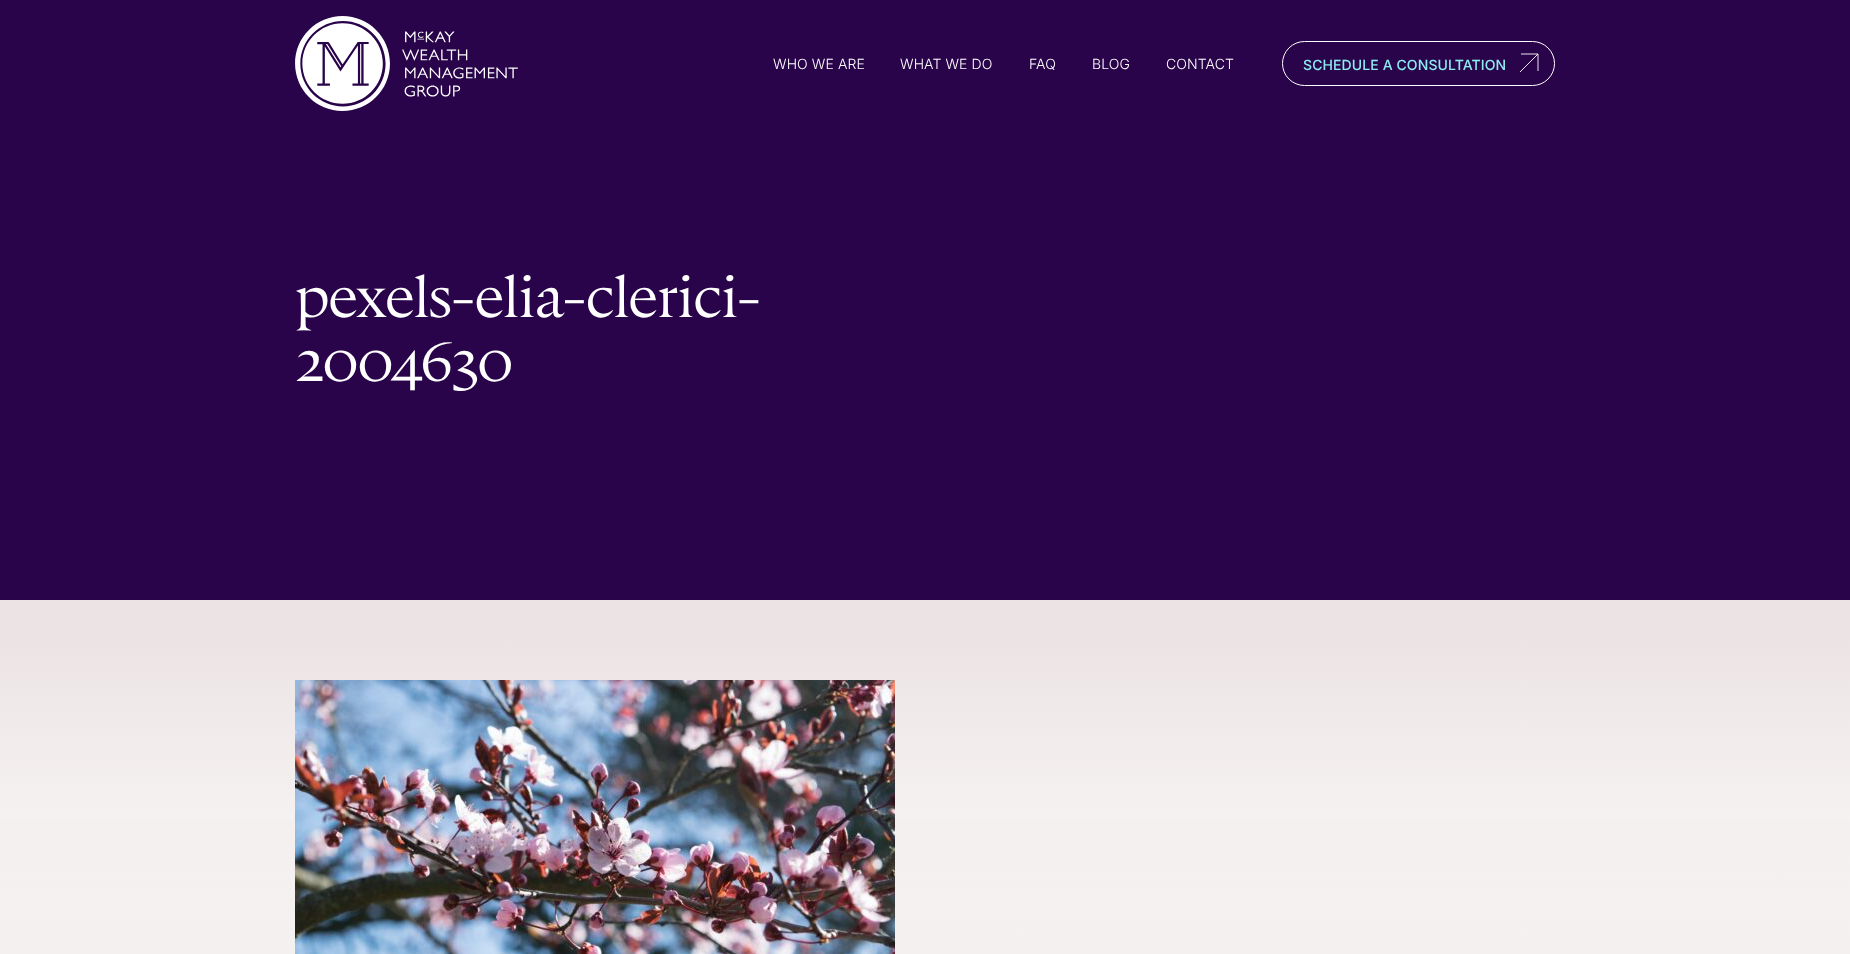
<?xml version="1.0" encoding="UTF-8"?>
<svg xmlns="http://www.w3.org/2000/svg" width="1850" height="954">
    <defs>
        <linearGradient id="g1" gradientUnits="userSpaceOnUse" x1="925" y1="600" x2="925" y2="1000"><stop offset="0" stop-color="#ECE4E4"/><stop offset="0.1" stop-color="#ECE4E4"/><stop offset="1" stop-color="#FFFFFF"/></linearGradient>
        <linearGradient id="g2" gradientUnits="userSpaceOnUse" x1="925" y1="760" x2="925" y2="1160"><stop offset="0" stop-color="#ECE4E4" stop-opacity="0"/><stop offset="1" stop-color="#ECE4E4"/></linearGradient>
    </defs>
    <rect width="100%" height="100%" fill="#FFFFFF"/>
    <rect x="0" y="0" width="1850" height="600" fill="#29044A"/>
    <image x="295" y="16" width="223" height="95" href="img_01.png"/>
    <text x="773" y="69" font-family="Inter" font-size="14" font-weight="300" letter-spacing="0.1" fill="#FFFFFF">WHO WE ARE</text>
    <text x="900" y="69" font-family="Inter" font-size="14" font-weight="300" letter-spacing="0.1" fill="#FFFFFF">WHAT WE DO</text>
    <text x="1029" y="69" font-family="Inter" font-size="14" font-weight="300" letter-spacing="0.1" fill="#FFFFFF">FAQ</text>
    <text x="1092" y="69" font-family="Inter" font-size="14" font-weight="300" letter-spacing="0.1" fill="#FFFFFF">BLOG</text>
    <text x="1166" y="69" font-family="Inter" font-size="14" font-weight="300" letter-spacing="0.1" fill="#FFFFFF">CONTACT</text>
    <rect x="1282.5" y="41.5" width="272" height="44" rx="22" fill="none" stroke="#FFFFFF"/>
    <text x="1303" y="70" font-family="Inter" font-size="14" font-weight="500" letter-spacing="0.1" fill="#8CEAF0">SCHEDULE A CONSULTATION</text>
    <path d="M 1521 54 H 1538 V 71 M 1520 72 L 1538 54" fill="none" stroke="#FFFFFF" stroke-width="0.9"/>
    <text font-family="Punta" font-size="64" letter-spacing="-1.5" fill="#FFFFFF">
        <tspan x="295" y="317">pexels-elia-clerici-</tspan>
        <tspan x="295" y="381">2004630</tspan>
    </text>
    <rect x="0" y="600" width="1850" height="354" fill="url(#g1)"/>
    <rect x="0" y="820" width="1850" height="134" fill="url(#g2)"/>
    <image x="295" y="680" width="600" height="274" href="img_02.png"/>
</svg>
